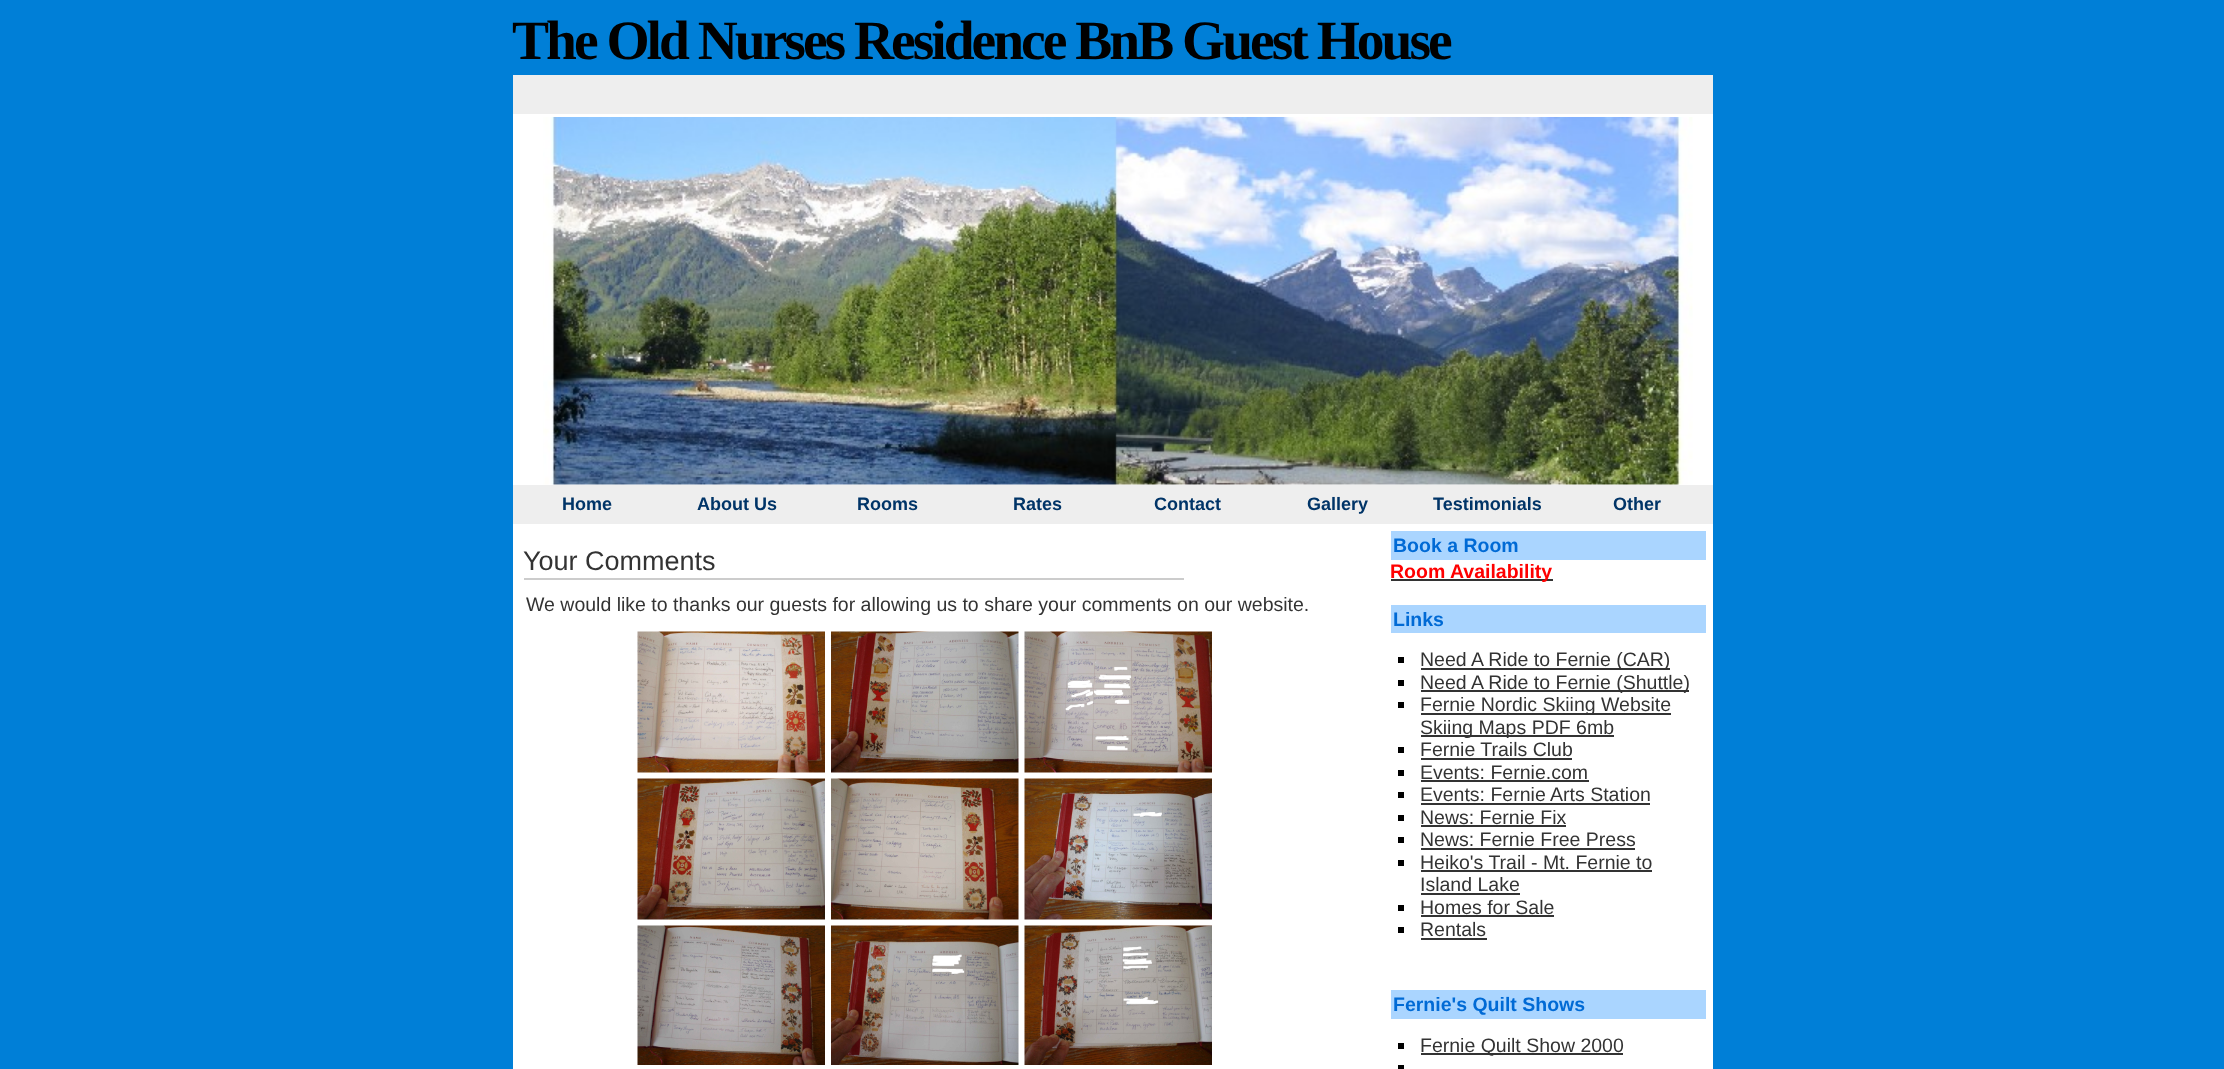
<?xml version="1.0" encoding="UTF-8"?>
<svg xmlns="http://www.w3.org/2000/svg" width="2224" height="1069">
    <rect width="100%" height="100%" fill="#007FD7"/>
    <text x="512" y="59" font-family="Liberation Serif" font-size="55.5" font-weight="700" letter-spacing="-3" fill="#000000">The Old Nurses Residence BnB Guest House</text>
    <rect x="513" y="75" width="1200" height="39" fill="#EEEEEE"/>
    <rect x="513" y="114" width="1200" height="371" fill="#FFFFFF"/>
    <image x="543" y="117" width="1150" height="368" href="img_01.png"/>
    <rect x="513" y="485" width="1200" height="39" fill="#EEEEEE"/>
    <text x="562" y="510" font-family="Liberation Sans" font-size="18" font-weight="700" fill="#003467">Home</text>
    <text x="697" y="510" font-family="Liberation Sans" font-size="18" font-weight="700" fill="#003467">About Us</text>
    <text x="857" y="510" font-family="Liberation Sans" font-size="18" font-weight="700" fill="#003467">Rooms</text>
    <text x="1013" y="510" font-family="Liberation Sans" font-size="18" font-weight="700" fill="#003467">Rates</text>
    <text x="1154" y="510" font-family="Liberation Sans" font-size="18" font-weight="700" fill="#003467">Contact</text>
    <text x="1307" y="510" font-family="Liberation Sans" font-size="18" font-weight="700" fill="#003467">Gallery</text>
    <text x="1433" y="510" font-family="Liberation Sans" font-size="18" font-weight="700" fill="#003467">Testimonials</text>
    <text x="1613" y="510" font-family="Liberation Sans" font-size="18" font-weight="700" fill="#003467">Other</text>
    <rect x="513" y="524" width="1200" height="545" fill="#FFFFFF"/>
    <rect x="524" y="578" width="660" height="2" fill="#CCCCCC"/>
    <text x="523" y="570" font-family="Liberation Sans" font-size="27" fill="#333333">Your Comments</text>
    <text x="526" y="611" font-family="Liberation Sans" font-size="19.5" fill="#333333">We would like to thanks our guests for allowing us to share your comments on our website.</text>
    <image x="637" y="631" width="188" height="142" href="img_02.png"/>
    <image x="831" y="631" width="188" height="142" href="img_03.png"/>
    <image x="1024" y="631" width="188" height="142" href="img_04.png"/>
    <image x="637" y="778" width="188" height="142" href="img_05.png"/>
    <image x="831" y="778" width="188" height="142" href="img_06.png"/>
    <image x="1024" y="778" width="188" height="142" href="img_07.png"/>
    <image x="637" y="925" width="188" height="140" href="img_08.png"/>
    <image x="831" y="925" width="188" height="140" href="img_09.png"/>
    <image x="1024" y="925" width="188" height="140" href="img_10.png"/>
    <rect x="1391" y="531" width="315" height="29" fill="#AAD5FF"/>
    <text x="1393" y="552" font-family="Liberation Sans" font-size="19.5" font-weight="700" fill="#006AD5">Book a Room</text>
    <rect x="1391" y="579" width="162" height="2" fill="#333333"/>
    <text x="1390" y="578" font-family="Liberation Sans" font-size="19.5" font-weight="700" fill="#FF0000">Room Availability</text>
    <rect x="1391" y="605" width="315" height="28" fill="#AAD5FF"/>
    <text x="1393" y="626" font-family="Liberation Sans" font-size="19.5" font-weight="700" fill="#006AD5">Links</text>
    <rect x="1398" y="657" width="6" height="6" fill="#000000"/>
    <rect x="1421" y="668" width="249" height="2" fill="#333333"/>
    <text x="1420" y="666" font-family="Liberation Sans" font-size="19.5" fill="#333333">Need A Ride to Fernie (CAR)</text>
    <rect x="1398" y="680" width="6" height="6" fill="#000000"/>
    <rect x="1421" y="690" width="268" height="2" fill="#333333"/>
    <text x="1420" y="689" font-family="Liberation Sans" font-size="19.5" fill="#333333">Need A Ride to Fernie (Shuttle)</text>
    <rect x="1398" y="702" width="6" height="6" fill="#000000"/>
    <rect x="1421" y="713" width="250" height="2" fill="#333333"/>
    <text x="1420" y="711" font-family="Liberation Sans" font-size="19.5" fill="#333333">Fernie Nordic Skiing Website</text>
    <rect x="1421" y="735" width="193" height="2" fill="#333333"/>
    <text x="1420" y="734" font-family="Liberation Sans" font-size="19.5" fill="#333333">Skiing Maps PDF 6mb</text>
    <rect x="1398" y="747" width="6" height="6" fill="#000000"/>
    <text x="1420" y="756" font-family="Liberation Sans" font-size="19.5" fill="#333333">Fernie Trails Club</text>
    <rect x="1421" y="758" width="151" height="2" fill="#333333"/>
    <rect x="1398" y="770" width="6" height="6" fill="#000000"/>
    <text x="1420" y="779" font-family="Liberation Sans" font-size="19.5" fill="#333333">Events: Fernie.com</text>
    <rect x="1421" y="780" width="168" height="2" fill="#333333"/>
    <rect x="1398" y="792" width="6" height="6" fill="#000000"/>
    <text x="1420" y="801" font-family="Liberation Sans" font-size="19.5" fill="#333333">Events: Fernie Arts Station</text>
    <rect x="1421" y="803" width="229" height="2" fill="#333333"/>
    <rect x="1398" y="815" width="6" height="6" fill="#000000"/>
    <text x="1420" y="824" font-family="Liberation Sans" font-size="19.5" fill="#333333">News: Fernie Fix</text>
    <rect x="1421" y="825" width="145" height="2" fill="#333333"/>
    <rect x="1398" y="837" width="6" height="6" fill="#000000"/>
    <text x="1420" y="846" font-family="Liberation Sans" font-size="19.5" fill="#333333">News: Fernie Free Press</text>
    <rect x="1421" y="848" width="214" height="2" fill="#333333"/>
    <rect x="1398" y="860" width="6" height="6" fill="#000000"/>
    <text x="1420" y="869" font-family="Liberation Sans" font-size="19.5" fill="#333333">Heiko's Trail - Mt. Fernie to</text>
    <rect x="1421" y="870" width="231" height="2" fill="#333333"/>
    <text x="1420" y="891" font-family="Liberation Sans" font-size="19.5" fill="#333333">Island Lake</text>
    <rect x="1421" y="893" width="99" height="2" fill="#333333"/>
    <rect x="1398" y="905" width="6" height="6" fill="#000000"/>
    <text x="1420" y="914" font-family="Liberation Sans" font-size="19.5" fill="#333333">Homes for Sale</text>
    <rect x="1421" y="915" width="133" height="2" fill="#333333"/>
    <rect x="1398" y="927" width="6" height="6" fill="#000000"/>
    <text x="1420" y="936" font-family="Liberation Sans" font-size="19.5" fill="#333333">Rentals</text>
    <rect x="1421" y="938" width="66" height="2" fill="#333333"/>
    <rect x="1391" y="990" width="315" height="29" fill="#AAD5FF"/>
    <text x="1393" y="1011" font-family="Liberation Sans" font-size="19.5" font-weight="700" fill="#006AD5">Fernie's Quilt Shows</text>
    <rect x="1398" y="1043" width="6" height="6" fill="#000000"/>
    <rect x="1421" y="1053" width="202" height="2" fill="#333333"/>
    <text x="1420" y="1052" font-family="Liberation Sans" font-size="19.5" fill="#333333">Fernie Quilt Show 2000</text>
    <rect x="1398" y="1065" width="6" height="4" fill="#000000"/>
</svg>
